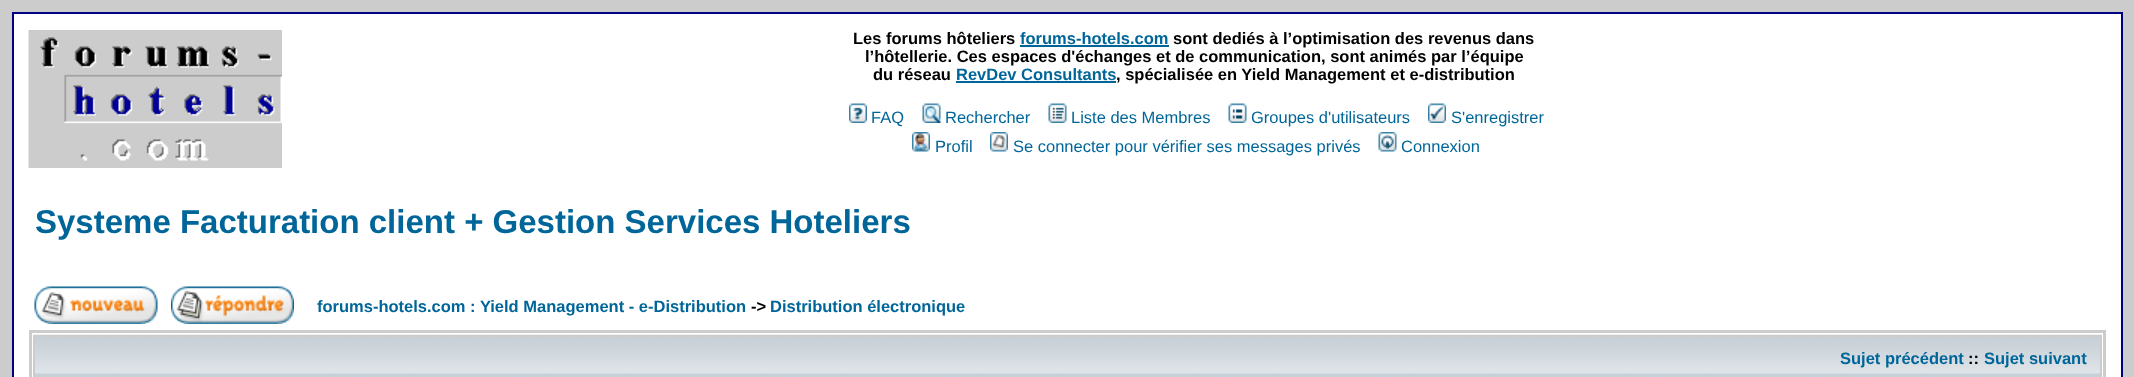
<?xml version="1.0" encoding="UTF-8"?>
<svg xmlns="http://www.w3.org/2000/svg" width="2134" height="377">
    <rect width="100%" height="100%" fill="#CCCCCC"/>
    <rect x="13" y="13" width="2109" height="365" fill="#FFFFFF" stroke="#000080" stroke-width="2"/>
    <image x="28" y="30" width="254" height="138" href="img_01.png"/>
    <text x="853" y="44" font-family="Liberation Sans" font-size="16.5" font-weight="700" fill="#000000">Les forums hôteliers</text>
    <text x="1020" y="44" font-family="Liberation Sans" font-size="16.5" font-weight="700" fill="#006699">forums-hotels.com</text>
    <rect x="1020" y="45" width="149" height="2" fill="#006699"/>
    <text x="1173" y="44" font-family="Liberation Sans" font-size="16.5" font-weight="700" fill="#000000">sont dediés à l’optimisation des revenus dans</text>
    <text x="865" y="62" font-family="Liberation Sans" font-size="16.5" font-weight="700" fill="#000000">l’hôtellerie. Ces espaces d'échanges et de communication, sont animés par l’équipe</text>
    <text x="873" y="80" font-family="Liberation Sans" font-size="16.5" font-weight="700" fill="#000000">du réseau</text>
    <text x="956" y="80" font-family="Liberation Sans" font-size="16.5" font-weight="700" fill="#006699">RevDev Consultants</text>
    <text x="1116" y="80" font-family="Liberation Sans" font-size="16.5" font-weight="700" fill="#000000">, spécialisée en Yield Management et e-distribution</text>
    <rect x="956" y="81" width="160" height="2" fill="#006699"/>
    <image x="849" y="103" width="18" height="20" href="img_02.png"/>
    <text x="871" y="123" font-family="Liberation Sans" font-size="16.5" fill="#006699">FAQ</text>
    <image x="922" y="103" width="19" height="20" href="img_03.png"/>
    <text x="945" y="123" font-family="Liberation Sans" font-size="16.5" fill="#006699">Rechercher</text>
    <image x="1048" y="103" width="19" height="20" href="img_04.png"/>
    <text x="1071" y="123" font-family="Liberation Sans" font-size="16.5" fill="#006699">Liste des Membres</text>
    <image x="1228" y="103" width="19" height="20" href="img_05.png"/>
    <text x="1251" y="123" font-family="Liberation Sans" font-size="16.5" fill="#006699">Groupes d'utilisateurs</text>
    <image x="1428" y="103" width="18" height="20" href="img_06.png"/>
    <text x="1451" y="123" font-family="Liberation Sans" font-size="16.5" fill="#006699">S'enregistrer</text>
    <image x="912" y="132" width="18" height="20" href="img_07.png"/>
    <text x="935" y="152" font-family="Liberation Sans" font-size="16.5" fill="#006699">Profil</text>
    <image x="990" y="132" width="18" height="20" href="img_08.png"/>
    <text x="1013" y="152" font-family="Liberation Sans" font-size="16.5" fill="#006699">Se connecter pour vérifier ses messages privés</text>
    <image x="1378" y="132" width="19" height="20" href="img_09.png"/>
    <text x="1401" y="152" font-family="Liberation Sans" font-size="16.5" fill="#006699">Connexion</text>
    <text x="35" y="233" font-family="Liberation Sans" font-size="33" font-weight="700" fill="#006699">Systeme Facturation client + Gestion Services Hoteliers</text>
    <image x="34" y="286" width="124" height="38" href="img_10.png"/>
    <image x="171" y="286" width="123" height="38" href="img_11.png"/>
    <text x="317" y="312" font-family="Liberation Sans" font-size="16.5" font-weight="700" fill="#006699">forums-hotels.com : Yield Management - e-Distribution</text>
    <text x="751" y="312" font-family="Liberation Sans" font-size="16.5" font-weight="700" fill="#000000">-&gt;</text>
    <text x="770" y="312" font-family="Liberation Sans" font-size="16.5" font-weight="700" fill="#006699">Distribution électronique</text>
    <rect x="30.5" y="331.5" width="2074" height="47" fill="none" stroke="#CCCCCC" stroke-width="3"/>
    <image x="33" y="334" width="2069" height="43" href="img_12.png"/>
    <rect x="33" y="335" width="2069" height="2" fill="#CCCCCC"/>
    <rect x="2100" y="335" width="2" height="42" fill="#CCCCCC"/>
    <rect x="33" y="335" width="2" height="42" fill="#CCCCCC"/>
    <text x="1840" y="364" font-family="Liberation Sans" font-size="16.5" font-weight="700" fill="#006699">Sujet précédent</text>
    <text x="1968" y="364" font-family="Liberation Sans" font-size="16.5" font-weight="700" fill="#000000">::</text>
    <text x="1984" y="364" font-family="Liberation Sans" font-size="16.5" font-weight="700" fill="#006699">Sujet suivant</text>
</svg>
